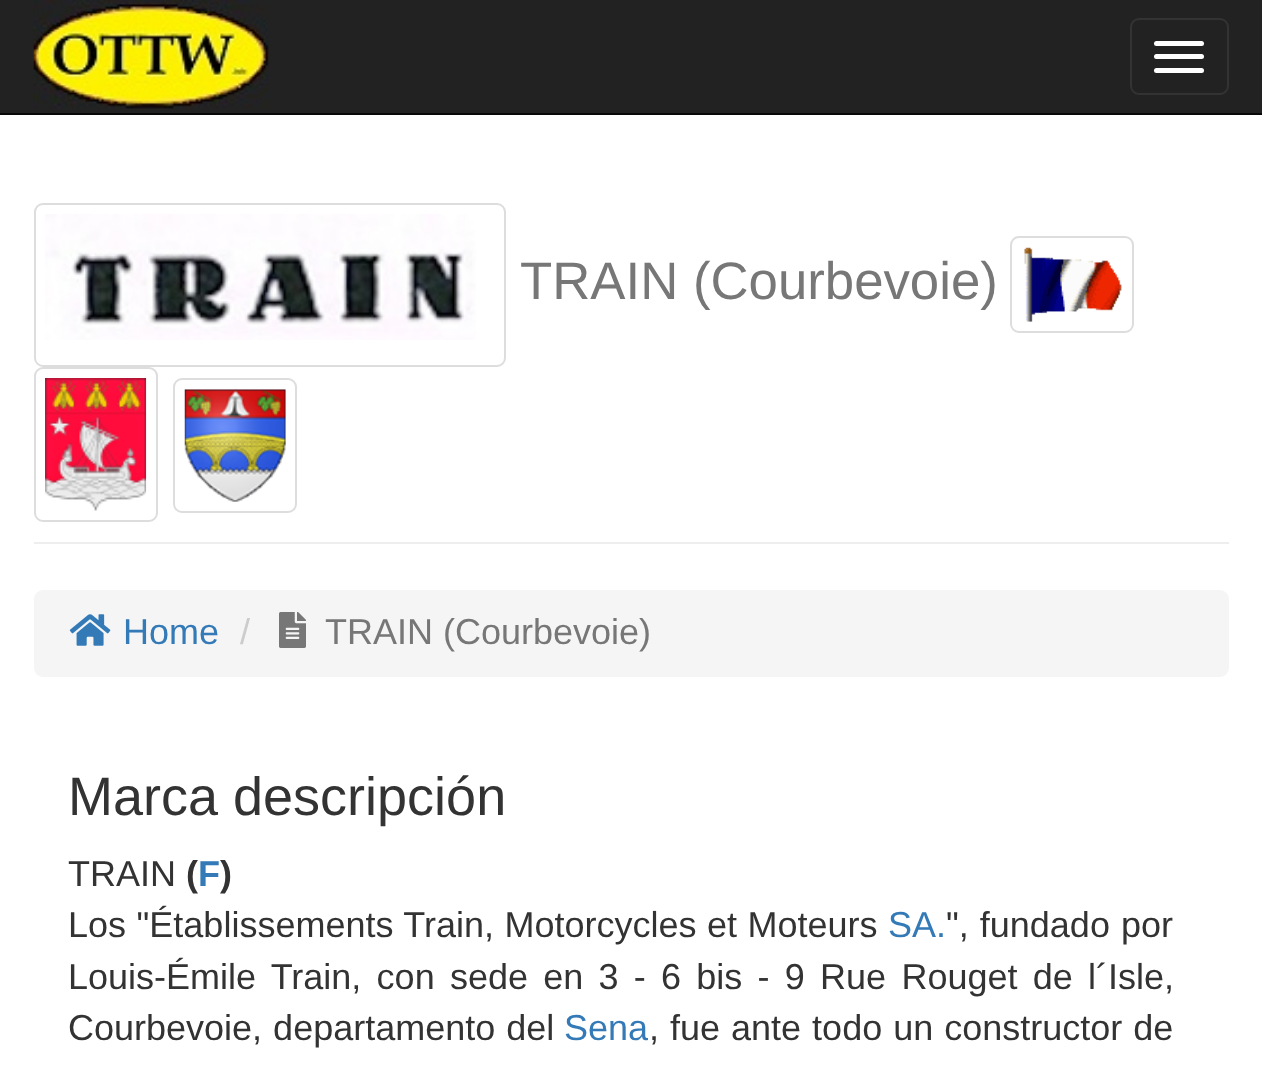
<?xml version="1.0" encoding="UTF-8"?>
<svg xmlns="http://www.w3.org/2000/svg" width="1262" height="1079">
    <rect width="100%" height="100%" fill="#FFFFFF"/>
    <rect x="0" y="0" width="1262" height="113" fill="#222222"/>
    <rect x="0" y="113" width="1262" height="2" fill="#080808"/>
    <image x="33" y="0" width="237" height="109" href="img_01.png"/>
    <rect x="1131" y="19" width="97" height="75" rx="8" fill="none" stroke="#333333" stroke-width="2"/>
    <rect x="1154" y="41" width="50" height="5" rx="2.5" fill="#FFFFFF"/>
    <rect x="1154" y="54" width="50" height="5" rx="2.5" fill="#FFFFFF"/>
    <rect x="1154" y="68" width="50" height="5" rx="2.5" fill="#FFFFFF"/>
    <rect x="34" y="542" width="1195" height="2" fill="#EEEEEE"/>
    <rect x="35" y="204" width="470" height="162" rx="8" fill="none" stroke="#DDDDDD" stroke-width="2"/>
    <image x="45" y="214" width="431" height="126" href="img_02.png"/>
    <text x="520" y="299" font-family="Liberation Sans" font-size="52.75" fill="#777777">TRAIN (Courbevoie)</text>
    <rect x="1011" y="237" width="122" height="95" rx="8" fill="none" stroke="#DDDDDD" stroke-width="2"/>
    <image x="1024" y="247" width="98" height="75" href="img_03.png"/>
    <rect x="35" y="368" width="122" height="153" rx="8" fill="none" stroke="#DDDDDD" stroke-width="2"/>
    <image x="45" y="378" width="102" height="133" href="img_04.png"/>
    <rect x="174" y="379" width="122" height="133" rx="8" fill="none" stroke="#DDDDDD" stroke-width="2"/>
    <image x="184" y="389" width="102" height="113" href="img_05.png"/>
    <rect x="34" y="590" width="1195" height="87" rx="9" fill="#F5F5F5"/>
    <image x="69" y="614" width="42" height="32" href="img_06.png"/>
    <text x="123" y="644" font-family="Liberation Sans" font-size="36" fill="#337AB7">Home</text>
    <text x="240" y="644" font-family="Liberation Sans" font-size="36" fill="#CCCCCC">/</text>
    <image x="279" y="612" width="27" height="36" href="img_07.png"/>
    <text x="325" y="644" font-family="Liberation Sans" font-size="36" fill="#777777">TRAIN (Courbevoie)</text>
    <text x="68" y="815" font-family="Liberation Sans" font-size="54" fill="#333333">Marca descripción</text>
    <text x="68" y="886" font-family="Liberation Sans" font-size="36" fill="#333333">TRAIN</text>
    <text x="186" y="886" font-family="Liberation Sans" font-size="36" font-weight="700" fill="#333333">(</text>
    <text x="198" y="886" font-family="Liberation Sans" font-size="36" font-weight="700" fill="#337AB7">F</text>
    <text x="220" y="886" font-family="Liberation Sans" font-size="36" font-weight="700" fill="#333333">)</text>
    <text x="68" y="937" word-spacing="0.5" font-family="Liberation Sans" font-size="36" fill="#333333">Los "Établissements Train, Motorcycles et Moteurs</text>
    <text x="888" y="937" font-family="Liberation Sans" font-size="36" fill="#337AB7">SA.</text>
    <text x="946" y="937" word-spacing="1" font-family="Liberation Sans" font-size="36" fill="#333333">", fundado por</text>
    <text font-family="Liberation Sans" font-size="36" fill="#333333">
        <tspan x="68" y="989" word-spacing="5.25">Louis-Émile Train, con sede en 3 - 6 bis - 9 Rue Rouget de l´Isle,</tspan>
        <tspan x="68" y="1040" word-spacing="1">Courbevoie, departamento del</tspan>
    </text>
    <text x="564" y="1040" font-family="Liberation Sans" font-size="36" fill="#337AB7">Sena</text>
    <text x="649" y="1040" word-spacing="1" font-family="Liberation Sans" font-size="36" fill="#333333">, fue ante todo un constructor de</text>
</svg>
